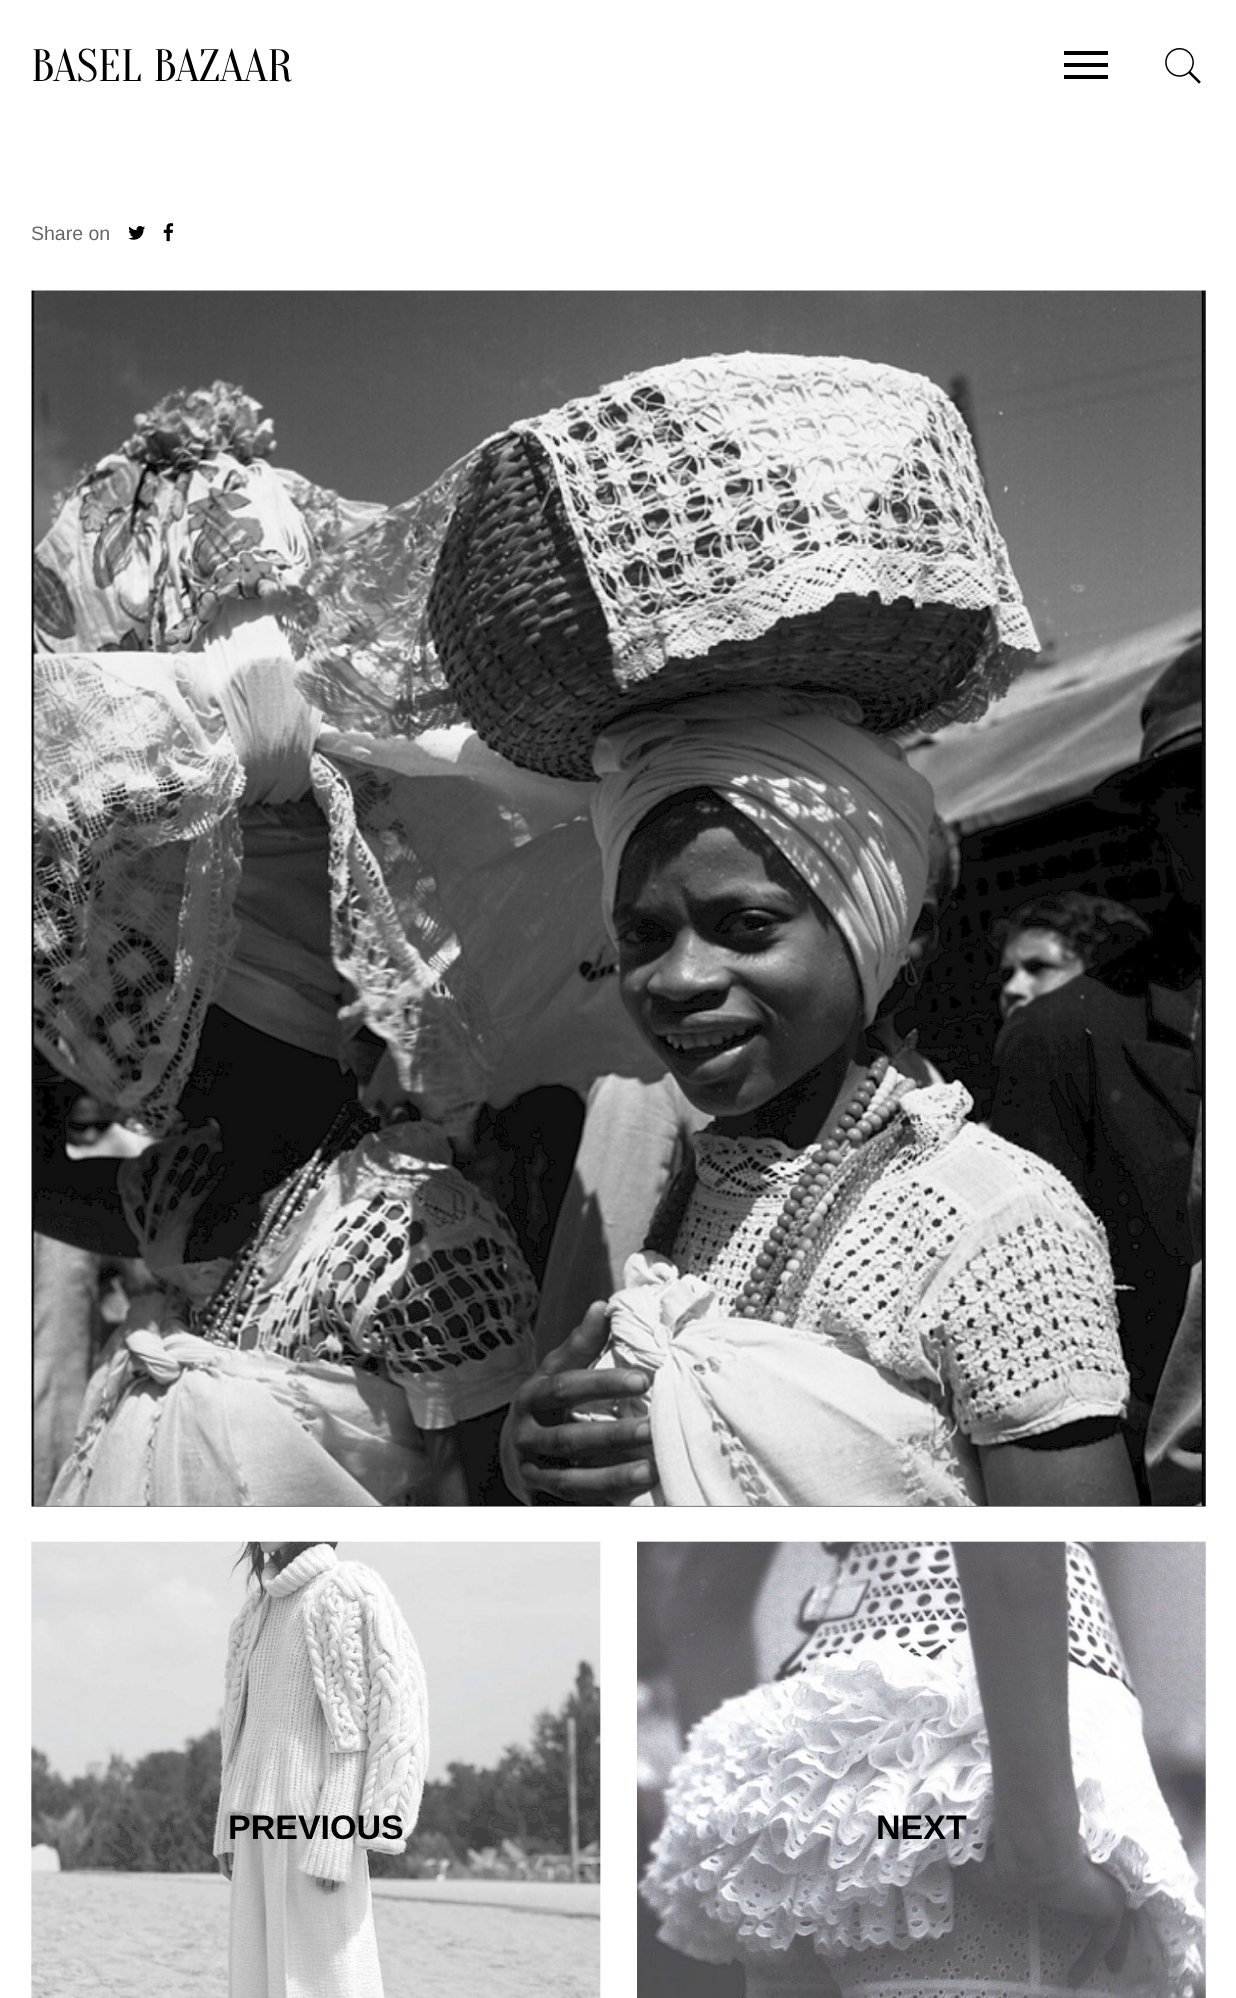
<?xml version="1.0" encoding="UTF-8"?>
<svg xmlns="http://www.w3.org/2000/svg" width="1236" height="1998">
    <rect width="100%" height="100%" fill="#FFFFFF"/>
    <text x="31" y="81" font-family="Oranienbaum" font-size="45.5" fill="#000000">BASEL BAZAAR</text>
    <rect x="1064" y="51" width="44" height="4" fill="#000000"/>
    <rect x="1064" y="63" width="44" height="4" fill="#000000"/>
    <rect x="1064" y="75" width="44" height="4" fill="#000000"/>
    <image x="1165" y="48" width="36" height="36" href="img_01.png"/>
    <text x="31" y="240" font-family="Liberation Sans" font-size="19.5" fill="#666666">Share on</text>
    <image x="128" y="226" width="18" height="14" href="img_02.png"/>
    <image x="163" y="223" width="11" height="19" href="img_03.png"/>
    <image x="31" y="290" width="1175" height="1217" href="img_04.png"/>
    <image x="31" y="1541" width="570" height="457" href="img_05.png"/>
    <text x="228" y="1839" font-family="Liberation Sans" font-size="34" font-weight="700" fill="#000000">PREVIOUS</text>
    <image x="637" y="1541" width="569" height="457" href="img_06.png"/>
    <text x="876" y="1839" font-family="Liberation Sans" font-size="34" font-weight="700" fill="#000000">NEXT</text>
</svg>
